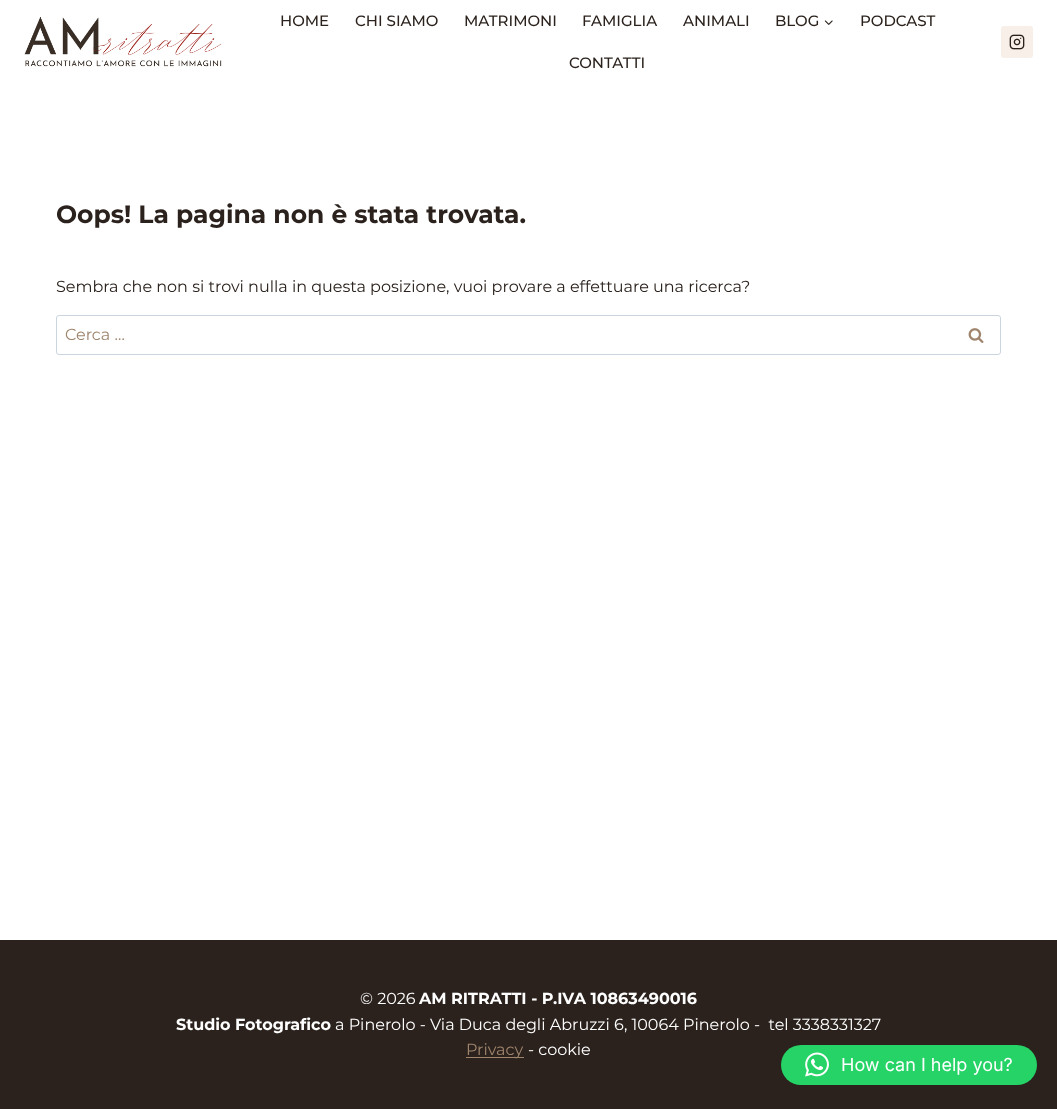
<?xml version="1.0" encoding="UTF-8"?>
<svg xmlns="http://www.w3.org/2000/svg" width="1057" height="1109">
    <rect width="100%" height="100%" fill="#FFFFFF"/>
    <image x="24" y="17" width="198" height="50" href="img_01.png"/>
    <text x="280" y="26" font-family="Montserrat" font-size="15" font-weight="500" fill="#2B221D">HOME</text>
    <text x="355" y="26" font-family="Montserrat" font-size="15" font-weight="500" fill="#2B221D">CHI SIAMO</text>
    <text x="464" y="26" font-family="Montserrat" font-size="15" font-weight="500" fill="#2B221D">MATRIMONI</text>
    <text x="582" y="26" font-family="Montserrat" font-size="15" font-weight="500" fill="#2B221D">FAMIGLIA</text>
    <text x="683" y="26" font-family="Montserrat" font-size="15" font-weight="500" fill="#2B221D">ANIMALI</text>
    <text x="775" y="26" font-family="Montserrat" font-size="15" font-weight="500" fill="#2B221D">BLOG</text>
    <image x="824" y="20" width="9" height="5" href="img_02.png"/>
    <text x="860" y="26" font-family="Montserrat" font-size="15" font-weight="500" fill="#2B221D">PODCAST</text>
    <text x="569" y="68" font-family="Montserrat" font-size="15" font-weight="500" fill="#2B221D">CONTATTI</text>
    <rect x="1001" y="26" width="32" height="32" rx="3" fill="#F8EFE8"/>
    <image x="1009" y="34" width="16" height="16" href="img_03.png"/>
    <text x="56" y="223" font-family="Montserrat" font-size="25" font-weight="700" fill="#2B221D">Oops! La pagina non è stata trovata.</text>
    <text x="56" y="292" font-family="Montserrat" font-size="16" fill="#2B221D">Sembra che non si trovi nulla in questa posizione, vuoi provare a effettuare una ricerca?</text>
    <rect x="56.5" y="315.5" width="944" height="39" rx="2.5" fill="none" stroke="#CBD5E0"/>
    <text x="65" y="340" font-family="Montserrat" font-size="16" fill="#9F856D">Cerca …</text>
    <image x="968" y="328" width="16" height="15" href="img_04.png"/>
    <rect x="0" y="940" width="1057" height="169" fill="#2B221D"/>
    <text x="360" y="1004" font-family="Montserrat" font-size="16" fill="#FFFFFF">© 2026</text>
    <text x="419" y="1004" font-family="Montserrat" font-size="16" font-weight="700" fill="#FFFFFF">AM RITRATTI - P.IVA 10863490016</text>
    <text x="176" y="1030" font-family="Montserrat" font-size="16" font-weight="700" fill="#FFFFFF">Studio Fotografico</text>
    <text x="335" y="1030" font-family="Montserrat" font-size="16" fill="#FFFFFF" xml:space="preserve">a Pinerolo - Via Duca degli Abruzzi 6, 10064 Pinerolo -  tel 3338331327</text>
    <rect x="466" y="1057" width="58" height="1" fill="#9F856D"/>
    <text x="466" y="1055" font-family="Montserrat" font-size="16" fill="#9F856D">Privacy</text>
    <text x="528" y="1055" font-family="Montserrat" font-size="16" fill="#FFFFFF">- cookie</text>
    <rect x="781" y="1045" width="256" height="40" rx="20" fill="#25D366"/>
    <image x="805" y="1052" width="24" height="25" href="img_05.png"/>
    <text x="841" y="1071" font-family="Inter" font-size="18" fill="#FFFFFF">How can I help you?</text>
</svg>
